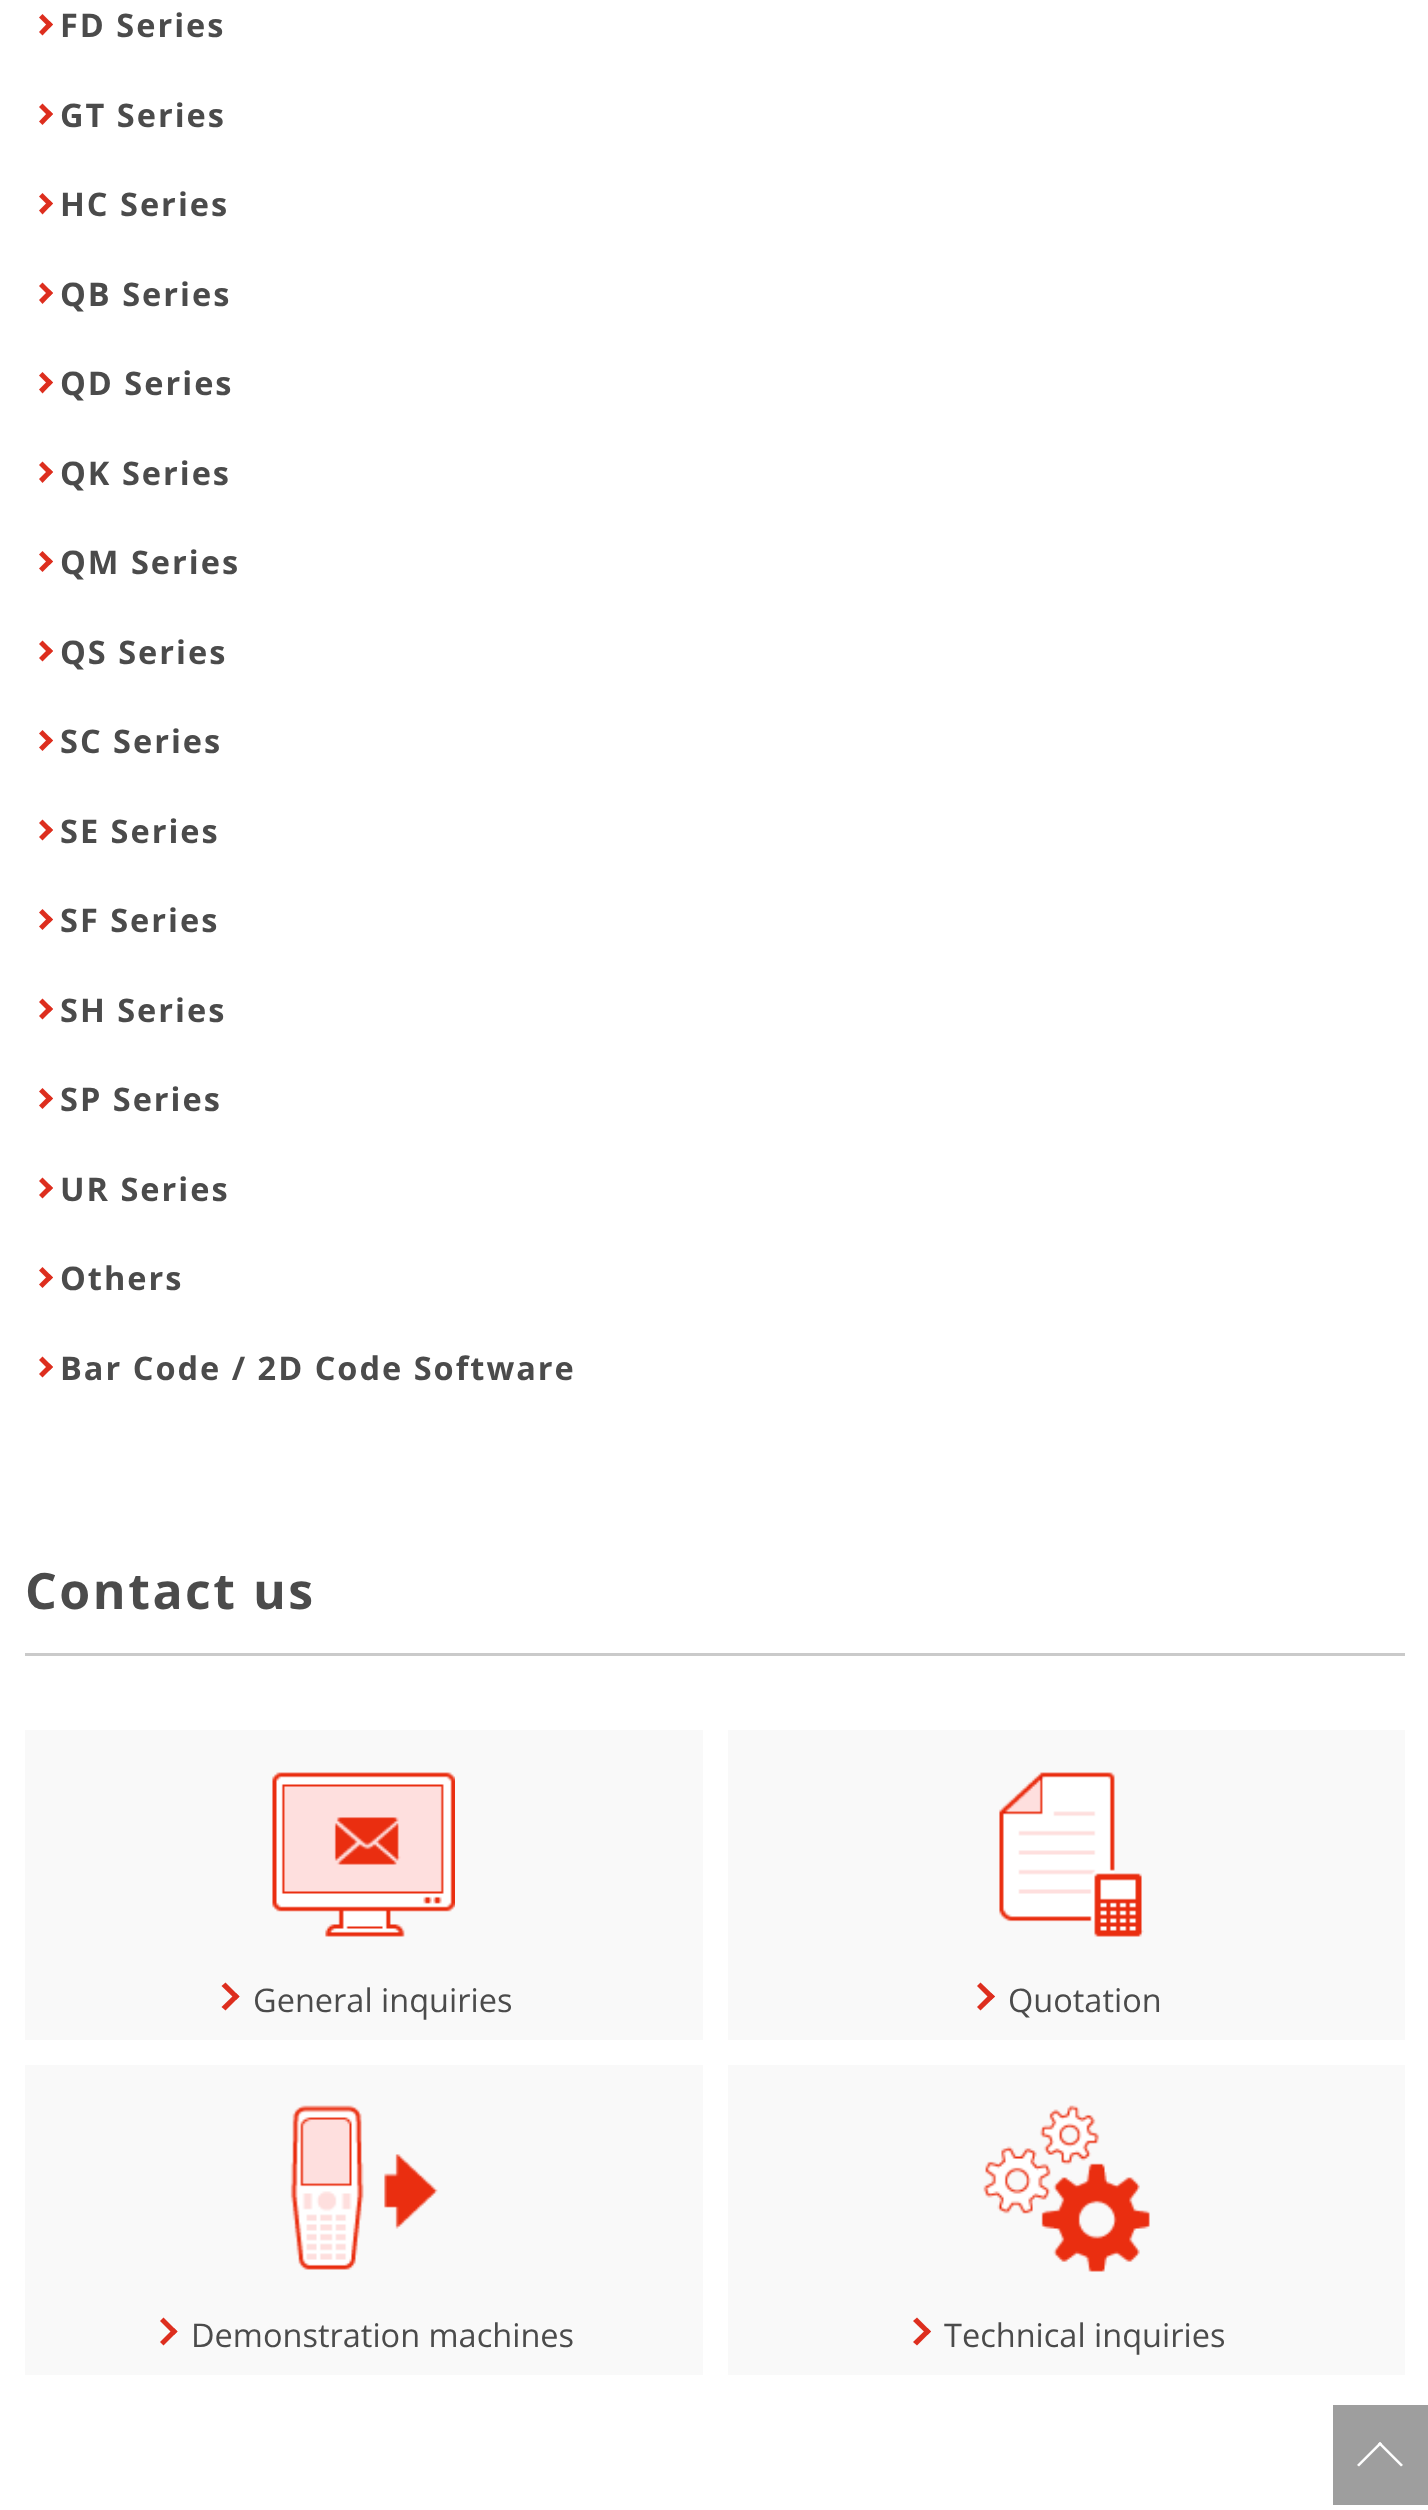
<?xml version="1.0" encoding="UTF-8"?>
<svg xmlns="http://www.w3.org/2000/svg" width="1428" height="2510">
    <rect width="100%" height="100%" fill="#FFFFFF"/>
    <path d="M 42.5 14 L 53 24.5 L 49.5 28 L 39 17.5 Z" fill="#DD2E1E"/>
    <path d="M 49.5 21 L 53 24.5 L 42.5 35.5 L 39 32 Z" fill="#DD2E1E"/>
    <text x="60" y="37" font-family="Open Sans" font-size="32.5" font-weight="700" letter-spacing="2" fill="#4B4B4B">FD Series</text>
    <path d="M 42.5 103.5 L 53 114 L 49.5 117.5 L 39 107 Z" fill="#DD2E1E"/>
    <path d="M 49.5 110.5 L 53 114 L 42.5 125 L 39 121.5 Z" fill="#DD2E1E"/>
    <text x="60" y="127" font-family="Open Sans" font-size="32.5" font-weight="700" letter-spacing="2" fill="#4B4B4B">GT Series</text>
    <path d="M 42.5 193 L 53 203.5 L 49.5 207 L 39 196.5 Z" fill="#DD2E1E"/>
    <path d="M 49.5 200 L 53 203.5 L 42.5 214.5 L 39 210.5 Z" fill="#DD2E1E"/>
    <text x="60" y="216" font-family="Open Sans" font-size="32.5" font-weight="700" letter-spacing="2" fill="#4B4B4B">HC Series</text>
    <path d="M 42.5 282.5 L 53 293 L 49.5 296.5 L 39 286 Z" fill="#DD2E1E"/>
    <path d="M 49.5 289.5 L 53 293 L 42.5 304 L 39 300 Z" fill="#DD2E1E"/>
    <text x="60" y="306" font-family="Open Sans" font-size="32.5" font-weight="700" letter-spacing="2" fill="#4B4B4B">QB Series</text>
    <path d="M 42.5 372 L 53 382.5 L 49.5 386 L 39 375.5 Z" fill="#DD2E1E"/>
    <path d="M 49.5 379 L 53 382.5 L 42.5 393.5 L 39 389.5 Z" fill="#DD2E1E"/>
    <text x="60" y="395" font-family="Open Sans" font-size="32.5" font-weight="700" letter-spacing="2" fill="#4B4B4B">QD Series</text>
    <path d="M 42.5 461.5 L 53 472 L 49.5 475.5 L 39 465 Z" fill="#DD2E1E"/>
    <path d="M 49.5 468.5 L 53 472 L 42.5 483 L 39 479 Z" fill="#DD2E1E"/>
    <text x="60" y="485" font-family="Open Sans" font-size="32.5" font-weight="700" letter-spacing="2" fill="#4B4B4B">QK Series</text>
    <path d="M 42.5 551 L 53 561.5 L 49.5 565 L 39 554.5 Z" fill="#DD2E1E"/>
    <path d="M 49.5 558 L 53 561.5 L 42.5 572 L 39 568.5 Z" fill="#DD2E1E"/>
    <text x="60" y="574" font-family="Open Sans" font-size="32.5" font-weight="700" letter-spacing="2" fill="#4B4B4B">QM Series</text>
    <path d="M 42.5 640.5 L 53 651 L 49.5 654.5 L 39 644 Z" fill="#DD2E1E"/>
    <path d="M 49.5 647.5 L 53 651 L 42.5 661.5 L 39 658 Z" fill="#DD2E1E"/>
    <text x="60" y="664" font-family="Open Sans" font-size="32.5" font-weight="700" letter-spacing="2" fill="#4B4B4B">QS Series</text>
    <path d="M 42.5 730 L 53 740.5 L 49.5 744 L 39 733.5 Z" fill="#DD2E1E"/>
    <path d="M 49.5 737 L 53 740.5 L 42.5 751 L 39 747.5 Z" fill="#DD2E1E"/>
    <text x="60" y="753" font-family="Open Sans" font-size="32.5" font-weight="700" letter-spacing="2" fill="#4B4B4B">SC Series</text>
    <path d="M 42.5 819.5 L 53 830 L 49.5 833.5 L 39 823 Z" fill="#DD2E1E"/>
    <path d="M 49.5 826.5 L 53 830 L 42.5 840.5 L 39 837 Z" fill="#DD2E1E"/>
    <text x="60" y="843" font-family="Open Sans" font-size="32.5" font-weight="700" letter-spacing="2" fill="#4B4B4B">SE Series</text>
    <path d="M 42.5 909 L 53 919.5 L 49.5 923 L 39 912.5 Z" fill="#DD2E1E"/>
    <path d="M 49.5 916 L 53 919.5 L 42.5 930 L 39 926.5 Z" fill="#DD2E1E"/>
    <text x="60" y="932" font-family="Open Sans" font-size="32.5" font-weight="700" letter-spacing="2" fill="#4B4B4B">SF Series</text>
    <path d="M 42.5 998.5 L 53 1009 L 49.5 1012.5 L 39 1002 Z" fill="#DD2E1E"/>
    <path d="M 49.5 1005.5 L 53 1009 L 42.5 1019.5 L 39 1016 Z" fill="#DD2E1E"/>
    <text x="60" y="1022" font-family="Open Sans" font-size="32.5" font-weight="700" letter-spacing="2" fill="#4B4B4B">SH Series</text>
    <path d="M 42.5 1088 L 53 1098.5 L 49.5 1102 L 39 1091.5 Z" fill="#DD2E1E"/>
    <path d="M 49.5 1095 L 53 1098.5 L 42.5 1109 L 39 1105.5 Z" fill="#DD2E1E"/>
    <text x="60" y="1111" font-family="Open Sans" font-size="32.5" font-weight="700" letter-spacing="2" fill="#4B4B4B">SP Series</text>
    <path d="M 42.5 1177.5 L 53 1188 L 49.5 1191.5 L 39 1181 Z" fill="#DD2E1E"/>
    <path d="M 49.5 1184.5 L 53 1188 L 42.5 1198.5 L 39 1195 Z" fill="#DD2E1E"/>
    <text x="60" y="1201" font-family="Open Sans" font-size="32.5" font-weight="700" letter-spacing="2" fill="#4B4B4B">UR Series</text>
    <path d="M 42.5 1267 L 53 1277.5 L 49.5 1281 L 39 1270.5 Z" fill="#DD2E1E"/>
    <path d="M 49.5 1274 L 53 1277.5 L 42.5 1288 L 39 1284.5 Z" fill="#DD2E1E"/>
    <text x="60" y="1290" font-family="Open Sans" font-size="32.5" font-weight="700" letter-spacing="2" fill="#4B4B4B">Others</text>
    <path d="M 42.5 1356.5 L 53 1367 L 49.5 1370.5 L 39 1360 Z" fill="#DD2E1E"/>
    <path d="M 49.5 1363.5 L 53 1367 L 42.5 1377.5 L 39 1374 Z" fill="#DD2E1E"/>
    <text x="60" y="1380" font-family="Open Sans" font-size="32.5" font-weight="700" letter-spacing="2" fill="#4B4B4B">Bar Code / 2D Code Software</text>
    <rect x="25" y="1653" width="1380" height="3" fill="#CACACA"/>
    <text x="25" y="1609" font-family="Open Sans" font-size="50" font-weight="700" letter-spacing="2.5" fill="#4B4B4B">Contact us</text>
    <rect x="25" y="1730" width="678" height="310" fill="#F9F9F9"/>
    <image x="272" y="1772" width="183" height="165" href="img_01.png"/>
    <path d="M 225.5 1982.5 L 239.5 1996.5 L 236 2000 L 221.5 1986 Z" fill="#DD2E1E"/>
    <path d="M 236 1993 L 239.5 1996.5 L 225.5 2010.5 L 221.5 2007 Z" fill="#DD2E1E"/>
    <text x="253" y="2012" font-family="Open Sans" font-size="32.5" fill="#4B4B4B">General inquiries</text>
    <rect x="728" y="1730" width="677" height="310" fill="#F9F9F9"/>
    <image x="999" y="1772" width="145" height="165" href="img_02.png"/>
    <path d="M 980.5 1982.5 L 995 1996.5 L 991 2000 L 977 1986 Z" fill="#DD2E1E"/>
    <path d="M 991 1993 L 995 1996.5 L 980.5 2010.5 L 977 2007 Z" fill="#DD2E1E"/>
    <text x="1008" y="2012" font-family="Open Sans" font-size="32.5" fill="#4B4B4B">Quotation</text>
    <rect x="25" y="2065" width="678" height="310" fill="#F9F9F9"/>
    <image x="290" y="2105" width="148" height="165" href="img_03.png"/>
    <path d="M 163.5 2317.5 L 177.5 2331.5 L 174 2335 L 160 2321 Z" fill="#DD2E1E"/>
    <path d="M 174 2328 L 177.5 2331.5 L 163.5 2345.5 L 160 2342 Z" fill="#DD2E1E"/>
    <text x="191" y="2347" font-family="Open Sans" font-size="32.5" fill="#4B4B4B">Demonstration machines</text>
    <rect x="728" y="2065" width="677" height="310" fill="#F9F9F9"/>
    <image x="983" y="2105" width="167" height="167" href="img_04.png"/>
    <path d="M 917 2317.5 L 931 2331.5 L 927.5 2335 L 913 2321 Z" fill="#DD2E1E"/>
    <path d="M 927.5 2328 L 931 2331.5 L 917 2345.5 L 913 2342 Z" fill="#DD2E1E"/>
    <text x="944" y="2347" font-family="Open Sans" font-size="32.5" fill="#4B4B4B">Technical inquiries</text>
    <rect x="1333" y="2405" width="95" height="100" fill="#9E9E9E"/>
    <path d="M 1357 2465 L 1380 2442 L 1382 2443.5 L 1359 2466.5 Z" fill="#FFFFFF"/>
    <path d="M 1378 2443.5 L 1380 2442 L 1403 2465 L 1401 2466.5 Z" fill="#FFFFFF"/>
</svg>
